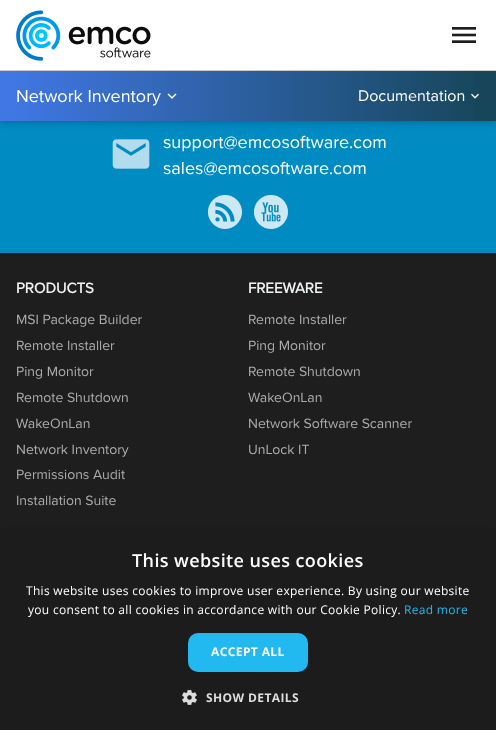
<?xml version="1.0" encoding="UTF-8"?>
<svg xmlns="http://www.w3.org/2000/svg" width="496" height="730">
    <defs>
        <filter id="blur1" x="-50%" y="-200%" width="200%" height="500%"><feGaussianBlur stdDeviation="4"/></filter>
        <linearGradient id="g1" gradientUnits="userSpaceOnUse" x1="0" y1="96" x2="496" y2="96"><stop offset="0" stop-color="#4178E6"/><stop offset="1" stop-color="#164557"/></linearGradient>
    </defs>
    <rect width="100%" height="100%" fill="#008BC2"/>
    <rect x="0" y="0" width="496" height="121" fill="#000000" fill-opacity="0.3" filter="url(#blur1)"/>
    <rect x="0" y="0" width="496" height="70" fill="#FFFFFF"/>
    <rect x="0" y="70" width="496" height="1" fill="#C8CBCC"/>
    <image x="16" y="10" width="135" height="51" href="img_01.png"/>
    <image x="452" y="27" width="24" height="16" href="img_02.png"/>
    <rect x="0" y="71" width="496" height="50" fill="url(#g1)"/>
    <text x="16" y="102" font-family="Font" font-size="18" fill="#FFFFFF">Network Inventory</text>
    <image x="167" y="93" width="10" height="6" href="img_03.png"/>
    <text x="358" y="101" font-family="Font" font-size="16" fill="#FFFFFF">Documentation</text>
    <image x="471" y="93" width="8" height="6" href="img_04.png"/>
    <image x="112" y="139" width="38" height="30" href="img_05.png"/>
    <text font-family="Font" font-size="18" fill="#FFFFFF">
        <tspan x="163" y="148">support@emcosoftware.com</tspan>
        <tspan x="163" y="174">sales@emcosoftware.com</tspan>
    </text>
    <image x="208" y="195" width="34" height="34" href="img_06.png"/>
    <image x="254" y="195" width="34" height="34" href="img_07.png"/>
    <rect x="0" y="253" width="496" height="278" fill="#1E1E1F"/>
    <text x="16" y="293" font-family="Font" font-size="15" font-weight="700" fill="#EDF1F2">PRODUCTS</text>
    <text font-family="Font" font-size="14" fill="#AAACAD">
        <tspan x="16" y="324">MSI Package Builder</tspan>
        <tspan x="16" y="350">Remote Installer</tspan>
        <tspan x="16" y="376">Ping Monitor</tspan>
        <tspan x="16" y="402">Remote Shutdown</tspan>
        <tspan x="16" y="428">WakeOnLan</tspan>
        <tspan x="16" y="454">Network Inventory</tspan>
        <tspan x="16" y="479">Permissions Audit</tspan>
        <tspan x="16" y="505">Installation Suite</tspan>
    </text>
    <text x="248" y="293" font-family="Font" font-size="15" font-weight="700" fill="#EDF1F2">FREEWARE</text>
    <text font-family="Font" font-size="14" fill="#AAACAD">
        <tspan x="248" y="324">Remote Installer</tspan>
        <tspan x="248" y="350">Ping Monitor</tspan>
        <tspan x="248" y="376">Remote Shutdown</tspan>
        <tspan x="248" y="402">WakeOnLan</tspan>
        <tspan x="248" y="428">Network Software Scanner</tspan>
        <tspan x="248" y="454">UnLock IT</tspan>
    </text>
    <rect x="1" y="533" width="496" height="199" fill="#000000" fill-opacity="0.35" filter="url(#blur1)"/>
    <rect x="0" y="531" width="496" height="199" fill="#1C1C1C"/>
    <text x="132" y="567" font-family="Open Sans" font-size="18" font-weight="600" letter-spacing="0.4" fill="#FFFFFF">This website uses cookies</text>
    <text x="26" y="595" font-family="Open Sans" font-size="12" letter-spacing="0.3" fill="#FFFFFF">This website uses cookies to improve user experience. By using our website</text>
    <text x="28" y="614" font-family="Open Sans" font-size="12" letter-spacing="0.3" fill="#FFFFFF">you consent to all cookies in accordance with our Cookie Policy.</text>
    <text x="404" y="614" font-family="Open Sans" font-size="12" letter-spacing="0.3" fill="#22B8F0">Read more</text>
    <rect x="188" y="633" width="120" height="39" rx="10" fill="#22B8F0"/>
    <text x="211" y="656" font-family="Open Sans" font-size="12" font-weight="700" letter-spacing="0.4" fill="#FFFFFF">ACCEPT ALL</text>
    <image x="182" y="690" width="15" height="15" href="img_08.png"/>
    <text x="206" y="702" font-family="Open Sans" font-size="12" font-weight="700" letter-spacing="0.4" fill="#DDDDDD">SHOW DETAILS</text>
</svg>
